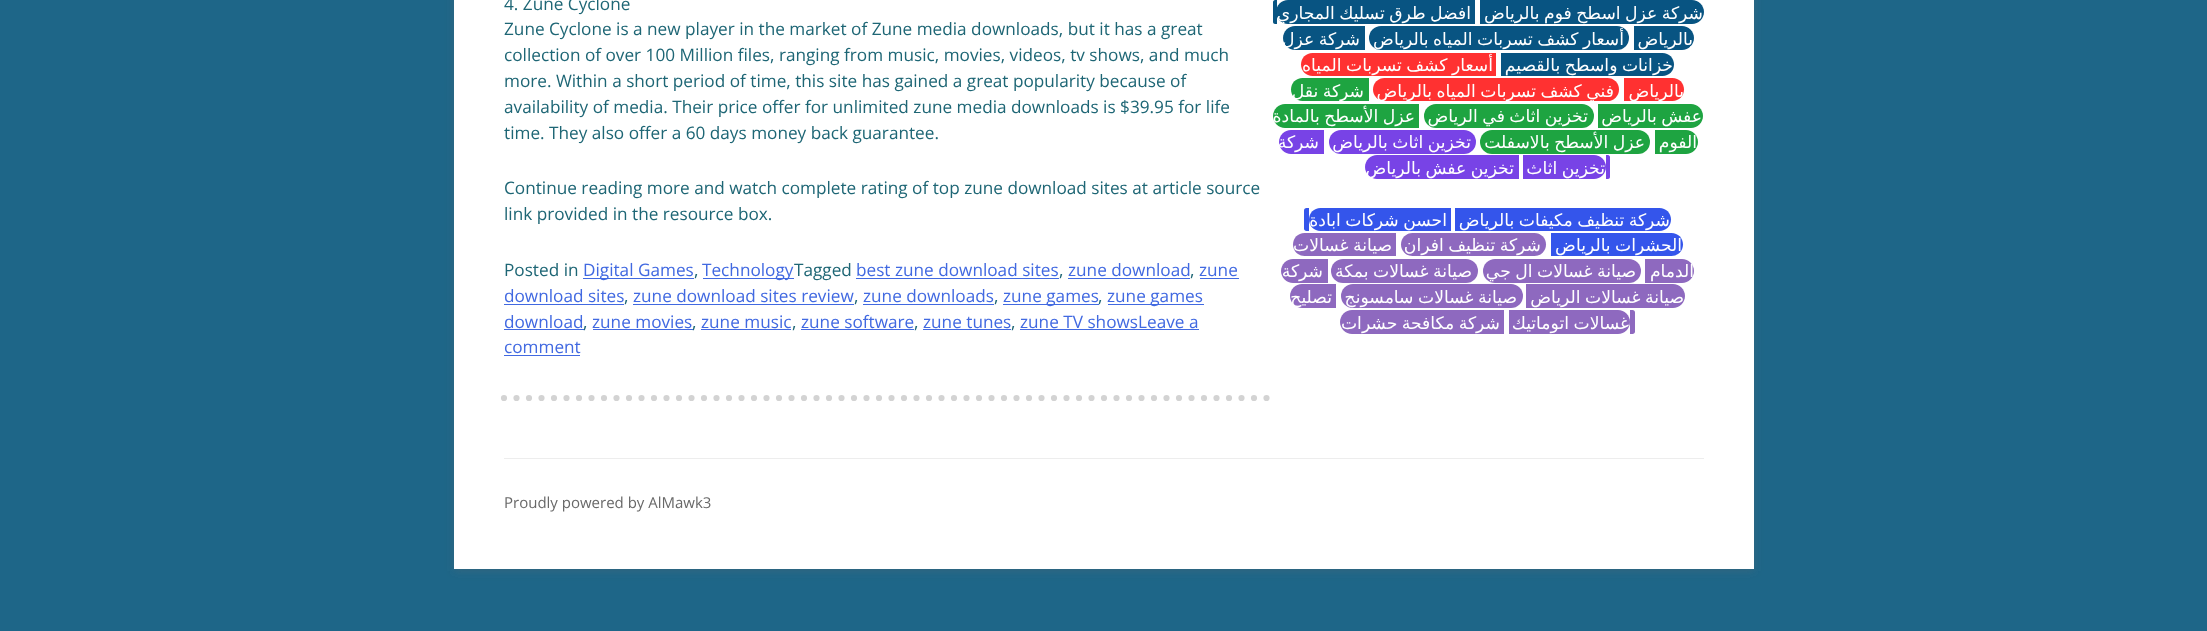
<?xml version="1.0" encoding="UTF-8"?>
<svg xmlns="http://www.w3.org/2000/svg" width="2207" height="631">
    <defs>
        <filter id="blur1" x="-50%" y="-200%" width="200%" height="500%"><feGaussianBlur stdDeviation="4"/></filter>
    </defs>
    <rect width="100%" height="100%" fill="#1E6688"/>
    <rect x="454" y="-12" width="1300" height="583" fill="#646464" fill-opacity="0.3" filter="url(#blur1)"/>
    <rect x="454" y="0" width="1300" height="569" fill="#FFFFFF"/>
    <path d="M 504 398 H 1271" fill="none" stroke="#D3D3D3" stroke-width="6.2" stroke-linecap="round" stroke-dasharray="0 12.5"/>
    <text font-family="Open Sans" font-size="17.2" fill="#1E6675">
        <tspan x="504" y="10">4. Zune Cyclone</tspan>
        <tspan x="504" y="35">Zune Cyclone is a new player in the market of Zune media downloads, but it has a great</tspan>
        <tspan x="504" y="61">collection of over 100 Million files, ranging from music, movies, videos, tv shows, and much</tspan>
        <tspan x="504" y="87">more. Within a short period of time, this site has gained a great popularity because of</tspan>
        <tspan x="504" y="113">availability of media. Their price offer for unlimited zune media downloads is $39.95 for life</tspan>
        <tspan x="504" y="139">time. They also offer a 60 days money back guarantee.</tspan>
    </text>
    <text font-family="Open Sans" font-size="17.2" fill="#1E6675">
        <tspan x="504" y="194">Continue reading more and watch complete rating of top zune download sites at article source</tspan>
        <tspan x="504" y="220">link provided in the resource box.</tspan>
    </text>
    <text x="504" y="276" font-family="Open Sans" font-size="17.2" fill="#1E6675">Posted in</text>
    <rect x="583" y="278" width="111" height="1" fill="#4169E1"/>
    <text x="583" y="276" font-family="Open Sans" font-size="17.2" fill="#4169E1">Digital Games</text>
    <text x="694" y="276" font-family="Open Sans" font-size="17.2" fill="#1E6675">,</text>
    <rect x="703" y="278" width="91" height="1" fill="#4169E1"/>
    <text x="702" y="276" font-family="Open Sans" font-size="17.2" fill="#4169E1">Technology</text>
    <text x="794" y="276" font-family="Open Sans" font-size="17.2" fill="#1E6675">Tagged</text>
    <text x="856" y="276" font-family="Open Sans" font-size="17.2" fill="#4169E1">best zune download sites</text>
    <text x="1059" y="276" font-family="Open Sans" font-size="17.2" fill="#1E6675">,</text>
    <rect x="856" y="278" width="203" height="1" fill="#4169E1"/>
    <text x="1068" y="276" font-family="Open Sans" font-size="17.2" fill="#4169E1">zune download</text>
    <text x="1190" y="276" font-family="Open Sans" font-size="17.2" fill="#1E6675">,</text>
    <rect x="1068" y="278" width="122" height="1" fill="#4169E1"/>
    <rect x="1200" y="278" width="39" height="1" fill="#4169E1"/>
    <text x="1199" y="276" font-family="Open Sans" font-size="17.2" fill="#4169E1">zune</text>
    <text x="504" y="302" font-family="Open Sans" font-size="17.2" fill="#4169E1">download sites</text>
    <text x="624" y="302" font-family="Open Sans" font-size="17.2" fill="#1E6675">,</text>
    <rect x="504" y="304" width="120" height="1" fill="#4169E1"/>
    <text x="633" y="302" font-family="Open Sans" font-size="17.2" fill="#4169E1">zune download sites review</text>
    <text x="854" y="302" font-family="Open Sans" font-size="17.2" fill="#1E6675">,</text>
    <rect x="633" y="304" width="221" height="1" fill="#4169E1"/>
    <text x="863" y="302" font-family="Open Sans" font-size="17.2" fill="#4169E1">zune downloads</text>
    <text x="994" y="302" font-family="Open Sans" font-size="17.2" fill="#1E6675">,</text>
    <rect x="863" y="304" width="131" height="1" fill="#4169E1"/>
    <rect x="1003" y="304" width="96" height="1" fill="#4169E1"/>
    <text x="1003" y="302" font-family="Open Sans" font-size="17.2" fill="#4169E1">zune games</text>
    <text x="1098" y="302" font-family="Open Sans" font-size="17.2" fill="#1E6675">,</text>
    <rect x="1108" y="304" width="96" height="1" fill="#4169E1"/>
    <text x="1107" y="302" font-family="Open Sans" font-size="17.2" fill="#4169E1">zune games</text>
    <text x="504" y="328" font-family="Open Sans" font-size="17.2" fill="#4169E1">download</text>
    <rect x="504" y="329" width="80" height="1" fill="#4169E1"/>
    <text x="583" y="328" font-family="Open Sans" font-size="17.2" fill="#1E6675">,</text>
    <text x="592" y="328" font-family="Open Sans" font-size="17.2" fill="#4169E1">zune movies</text>
    <text x="692" y="328" font-family="Open Sans" font-size="17.2" fill="#1E6675">,</text>
    <rect x="593" y="329" width="100" height="1" fill="#4169E1"/>
    <text x="701" y="328" font-family="Open Sans" font-size="17.2" fill="#4169E1">zune music</text>
    <text x="792" y="328" font-family="Open Sans" font-size="17.2" fill="#1E6675">,</text>
    <rect x="701" y="329" width="90" height="1" fill="#4169E1"/>
    <text x="801" y="328" font-family="Open Sans" font-size="17.2" fill="#4169E1">zune software</text>
    <text x="914" y="328" font-family="Open Sans" font-size="17.2" fill="#1E6675">,</text>
    <rect x="801" y="329" width="113" height="1" fill="#4169E1"/>
    <text x="923" y="328" font-family="Open Sans" font-size="17.2" fill="#4169E1">zune tunes</text>
    <text x="1011" y="328" font-family="Open Sans" font-size="17.2" fill="#1E6675">,</text>
    <rect x="923" y="329" width="88" height="1" fill="#4169E1"/>
    <rect x="1020" y="329" width="179" height="1" fill="#4169E1"/>
    <text x="1020" y="328" font-family="Open Sans" font-size="17.2" fill="#4169E1">zune TV showsLeave a</text>
    <text x="504" y="353" font-family="Open Sans" font-size="17.2" fill="#4169E1">comment</text>
    <rect x="504" y="355" width="76" height="1" fill="#4169E1"/>
    <path d="M 1275 0 H 1277 V 24 H 1275 C 1274 24 1273 23 1273 22 V 2 C 1273 1 1274 0 1275 0 Z" fill="#085482"/>
    <path d="M 1288 0 H 1475 V 24 H 1288 C 1281.5 24 1276 18.5 1276 12 C 1276 5.5 1281.5 0 1288 0 Z" fill="#085482"/>
    <text x="1471" y="19" word-spacing="-1" font-family="DejaVu Sans" font-size="17.2" direction="rtl" fill="#FFFFFF">افضل طرق تسليك المجاري</text>
    <path d="M 1480 0 H 1692 C 1698.5 0 1704 5.5 1704 12 C 1704 18.5 1698.5 24 1692 24 H 1480 Z" fill="#085482"/>
    <text x="1703" y="19" word-spacing="-1" font-family="DejaVu Sans" font-size="17.2" direction="rtl" fill="#FFFFFF">شركة عزل اسطح فوم بالرياض</text>
    <path d="M 1295 26 H 1365 V 50 H 1295 C 1288.5 50 1283 44.5 1283 38 C 1283 31.5 1288.5 26 1295 26 Z" fill="#085482"/>
    <text x="1360" y="45" word-spacing="-1" font-family="DejaVu Sans" font-size="17.2" direction="rtl" fill="#FFFFFF">شركة عزل</text>
    <rect x="1369" y="26" width="260" height="24" rx="12" fill="#085482"/>
    <text x="1624" y="45" word-spacing="-1" font-family="DejaVu Sans" font-size="17.2" direction="rtl" fill="#FFFFFF">أسعار كشف تسربات المياه بالرياض</text>
    <path d="M 1634 26 H 1682 C 1688.5 26 1694 31.5 1694 38 C 1694 44.5 1688.5 50 1682 50 H 1634 Z" fill="#085482"/>
    <text x="1693" y="45" font-family="DejaVu Sans" font-size="17.2" direction="rtl" fill="#FFFFFF">بالرياض</text>
    <path d="M 1312.5 53 H 1496 V 76 H 1312.5 C 1306 76 1301 71 1301 64.5 C 1301 58 1306 53 1312.5 53 Z" fill="#FF3131"/>
    <text x="1493" y="71" word-spacing="-1" font-family="DejaVu Sans" font-size="17.2" direction="rtl" fill="#FFFFFF">أسعار كشف تسربات المياه</text>
    <path d="M 1501 53 H 1662.5 C 1669 53 1674 58 1674 64.5 C 1674 71 1669 76 1662.5 76 H 1501 Z" fill="#085482"/>
    <text x="1673" y="71" word-spacing="-1" font-family="DejaVu Sans" font-size="17.2" direction="rtl" fill="#FFFFFF">خزانات واسطح بالقصيم</text>
    <path d="M 1302.5 78 H 1369 V 101 H 1302.5 C 1296 101 1291 96 1291 89.5 C 1291 83 1296 78 1302.5 78 Z" fill="#1EA441"/>
    <text x="1364" y="97" word-spacing="-1" font-family="DejaVu Sans" font-size="17.2" direction="rtl" fill="#FFFFFF">شركة نقل</text>
    <rect x="1373" y="78" width="246" height="23" rx="11.5" fill="#FF3131"/>
    <text x="1614" y="97" word-spacing="-1" font-family="DejaVu Sans" font-size="17.2" direction="rtl" fill="#FFFFFF">فني كشف تسربات المياه بالرياض</text>
    <path d="M 1624 78 H 1672.5 C 1679 78 1684 83 1684 89.5 C 1684 96 1679 101 1672.5 101 H 1624 Z" fill="#FF3131"/>
    <text x="1684" y="97" font-family="DejaVu Sans" font-size="17.2" direction="rtl" fill="#FFFFFF">بالرياض</text>
    <path d="M 1285 104 H 1419 V 128 H 1285 C 1278.5 128 1273 122.5 1273 116 C 1273 109.5 1278.5 104 1285 104 Z" fill="#1EA441"/>
    <text x="1415" y="122" word-spacing="-1" font-family="DejaVu Sans" font-size="17.2" direction="rtl" fill="#FFFFFF">عزل الأسطح بالمادة</text>
    <rect x="1424" y="104" width="170" height="24" rx="12" fill="#1EA441"/>
    <text x="1588" y="122" word-spacing="-1" font-family="DejaVu Sans" font-size="17.2" direction="rtl" fill="#FFFFFF">تخزين اثاث في الرياض</text>
    <path d="M 1598 104 H 1691 C 1697.5 104 1703 109.5 1703 116 C 1703 122.5 1697.5 128 1691 128 H 1598 Z" fill="#1EA441"/>
    <text x="1702" y="122" word-spacing="-1" font-family="DejaVu Sans" font-size="17.2" direction="rtl" fill="#FFFFFF">عفش بالرياض</text>
    <path d="M 1291 130 H 1324 V 154 H 1291 C 1284.5 154 1279 148.5 1279 142 C 1279 135.5 1284.5 130 1291 130 Z" fill="#7843E6"/>
    <text x="1319" y="148" font-family="DejaVu Sans" font-size="17.2" direction="rtl" fill="#FFFFFF">شركة</text>
    <rect x="1329" y="130" width="147" height="24" rx="12" fill="#7843E6"/>
    <text x="1471" y="148" word-spacing="-1" font-family="DejaVu Sans" font-size="17.2" direction="rtl" fill="#FFFFFF">تخزين اثاث بالرياض</text>
    <rect x="1480" y="130" width="170" height="24" rx="12" fill="#1EA441"/>
    <text x="1645" y="148" word-spacing="-1" font-family="DejaVu Sans" font-size="17.2" direction="rtl" fill="#FFFFFF">عزل الأسطح بالاسفلت</text>
    <path d="M 1655 130 H 1686 C 1692.5 130 1698 135.5 1698 142 C 1698 148.5 1692.5 154 1686 154 H 1655 Z" fill="#1EA441"/>
    <text x="1697" y="148" font-family="DejaVu Sans" font-size="17.2" direction="rtl" fill="#FFFFFF">الفوم</text>
    <path d="M 1377 155 H 1519 V 179 H 1377 C 1370.5 179 1365 173.5 1365 167 C 1365 160.5 1370.5 155 1377 155 Z" fill="#7843E6"/>
    <text x="1514" y="174" word-spacing="-1" font-family="DejaVu Sans" font-size="17.2" direction="rtl" fill="#FFFFFF">تخزين عفش بالرياض</text>
    <path d="M 1606 155 H 1608 C 1609 155 1610 156 1610 157 V 177 C 1610 178 1609 179 1608 179 H 1606 Z" fill="#7843E6"/>
    <path d="M 1523 155 H 1594 C 1600.5 155 1606 160.5 1606 167 C 1606 173.5 1600.5 179 1594 179 H 1523 Z" fill="#7843E6"/>
    <text x="1605" y="174" word-spacing="-1" font-family="DejaVu Sans" font-size="17.2" direction="rtl" fill="#FFFFFF">تخزين اثاث</text>
    <path d="M 1320.5 208 H 1451 V 231 H 1320.5 C 1314 231 1309 226 1309 219.5 C 1309 213 1314 208 1320.5 208 Z" fill="#3455EB"/>
    <text x="1447" y="226" word-spacing="-1" font-family="DejaVu Sans" font-size="17.2" direction="rtl" fill="#FFFFFF">احسن شركات ابادة</text>
    <path d="M 1455 208 H 1659.5 C 1666 208 1671 213 1671 219.5 C 1671 226 1666 231 1659.5 231 H 1455 Z" fill="#3455EB"/>
    <text x="1670" y="226" word-spacing="-1" font-family="DejaVu Sans" font-size="17.2" direction="rtl" fill="#FFFFFF">شركة تنظيف مكيفات بالرياض</text>
    <path d="M 1306.5 208 H 1309 V 231 H 1306.5 C 1305 231 1304 230 1304 228.5 V 210.5 C 1304 209 1305 208 1306.5 208 Z" fill="#3455EB"/>
    <path d="M 1304.5 233 H 1396 V 256 H 1304.5 C 1298 256 1293 251 1293 244.5 C 1293 238 1298 233 1304.5 233 Z" fill="#8E69BF"/>
    <text x="1392" y="251" word-spacing="-1" font-family="DejaVu Sans" font-size="17.2" direction="rtl" fill="#FFFFFF">صيانة غسالات</text>
    <rect x="1401" y="233" width="145" height="23" rx="11.5" fill="#8E69BF"/>
    <text x="1541" y="251" word-spacing="-1" font-family="DejaVu Sans" font-size="17.2" direction="rtl" fill="#FFFFFF">شركة تنظيف افران</text>
    <path d="M 1551 233 H 1671.5 C 1678 233 1683 238 1683 244.5 C 1683 251 1678 256 1671.5 256 H 1551 Z" fill="#3455EB"/>
    <text x="1682" y="251" word-spacing="-1" font-family="DejaVu Sans" font-size="17.2" direction="rtl" fill="#FFFFFF">الحشرات بالرياض</text>
    <path d="M 1293 259 H 1328 V 283 H 1293 C 1286.5 283 1281 277.5 1281 271 C 1281 264.5 1286.5 259 1293 259 Z" fill="#8E69BF"/>
    <text x="1323" y="277" font-family="DejaVu Sans" font-size="17.2" direction="rtl" fill="#FFFFFF">شركة</text>
    <rect x="1331" y="259" width="147" height="24" rx="12" fill="#8E69BF"/>
    <text x="1472" y="277" word-spacing="-1" font-family="DejaVu Sans" font-size="17.2" direction="rtl" fill="#FFFFFF">صيانة غسالات بمكة</text>
    <rect x="1483" y="259" width="158" height="24" rx="12" fill="#8E69BF"/>
    <text x="1636" y="277" word-spacing="-1" font-family="DejaVu Sans" font-size="17.2" direction="rtl" fill="#FFFFFF">صيانة غسالات ال جي</text>
    <path d="M 1645 259 H 1682 C 1688.5 259 1694 264.5 1694 271 C 1694 277.5 1688.5 283 1682 283 H 1645 Z" fill="#8E69BF"/>
    <text x="1694" y="277" font-family="DejaVu Sans" font-size="17.2" direction="rtl" fill="#FFFFFF">الدمام</text>
    <path d="M 1302 284 H 1336 V 308 H 1302 C 1295.5 308 1290 302.5 1290 296 C 1290 289.5 1295.5 284 1302 284 Z" fill="#8E69BF"/>
    <text x="1332" y="303" font-family="DejaVu Sans" font-size="17.2" direction="rtl" fill="#FFFFFF">تصليح</text>
    <rect x="1341" y="284" width="182" height="24" rx="12" fill="#8E69BF"/>
    <text x="1517" y="303" word-spacing="-1" font-family="DejaVu Sans" font-size="17.2" direction="rtl" fill="#FFFFFF">صيانة غسالات سامسونج</text>
    <path d="M 1526 284 H 1673 C 1679.5 284 1685 289.5 1685 296 C 1685 302.5 1679.5 308 1673 308 H 1526 Z" fill="#8E69BF"/>
    <text x="1684" y="303" word-spacing="-1" font-family="DejaVu Sans" font-size="17.2" direction="rtl" fill="#FFFFFF">صيانة غسالات الرياض</text>
    <path d="M 1352 310 H 1504 V 334 H 1352 C 1345.5 334 1340 328.5 1340 322 C 1340 315.5 1345.5 310 1352 310 Z" fill="#8E69BF"/>
    <text x="1500" y="329" word-spacing="-1" font-family="DejaVu Sans" font-size="17.2" direction="rtl" fill="#FFFFFF">شركة مكافحة حشرات</text>
    <path d="M 1509 310 H 1618 C 1624.5 310 1630 315.5 1630 322 C 1630 328.5 1624.5 334 1618 334 H 1509 Z" fill="#8E69BF"/>
    <text x="1629" y="329" word-spacing="-1" font-family="DejaVu Sans" font-size="17.2" direction="rtl" fill="#FFFFFF">غسالات اتوماتيك</text>
    <path d="M 1630 310 H 1632.5 C 1634 310 1635 311 1635 312.5 V 331.5 C 1635 333 1634 334 1632.5 334 H 1630 Z" fill="#8E69BF"/>
    <rect x="504" y="458" width="1200" height="1" fill="#EDEDED"/>
    <text x="504" y="508" font-family="Open Sans" font-size="15" fill="#686868">Proudly powered by AlMawk3</text>
</svg>
